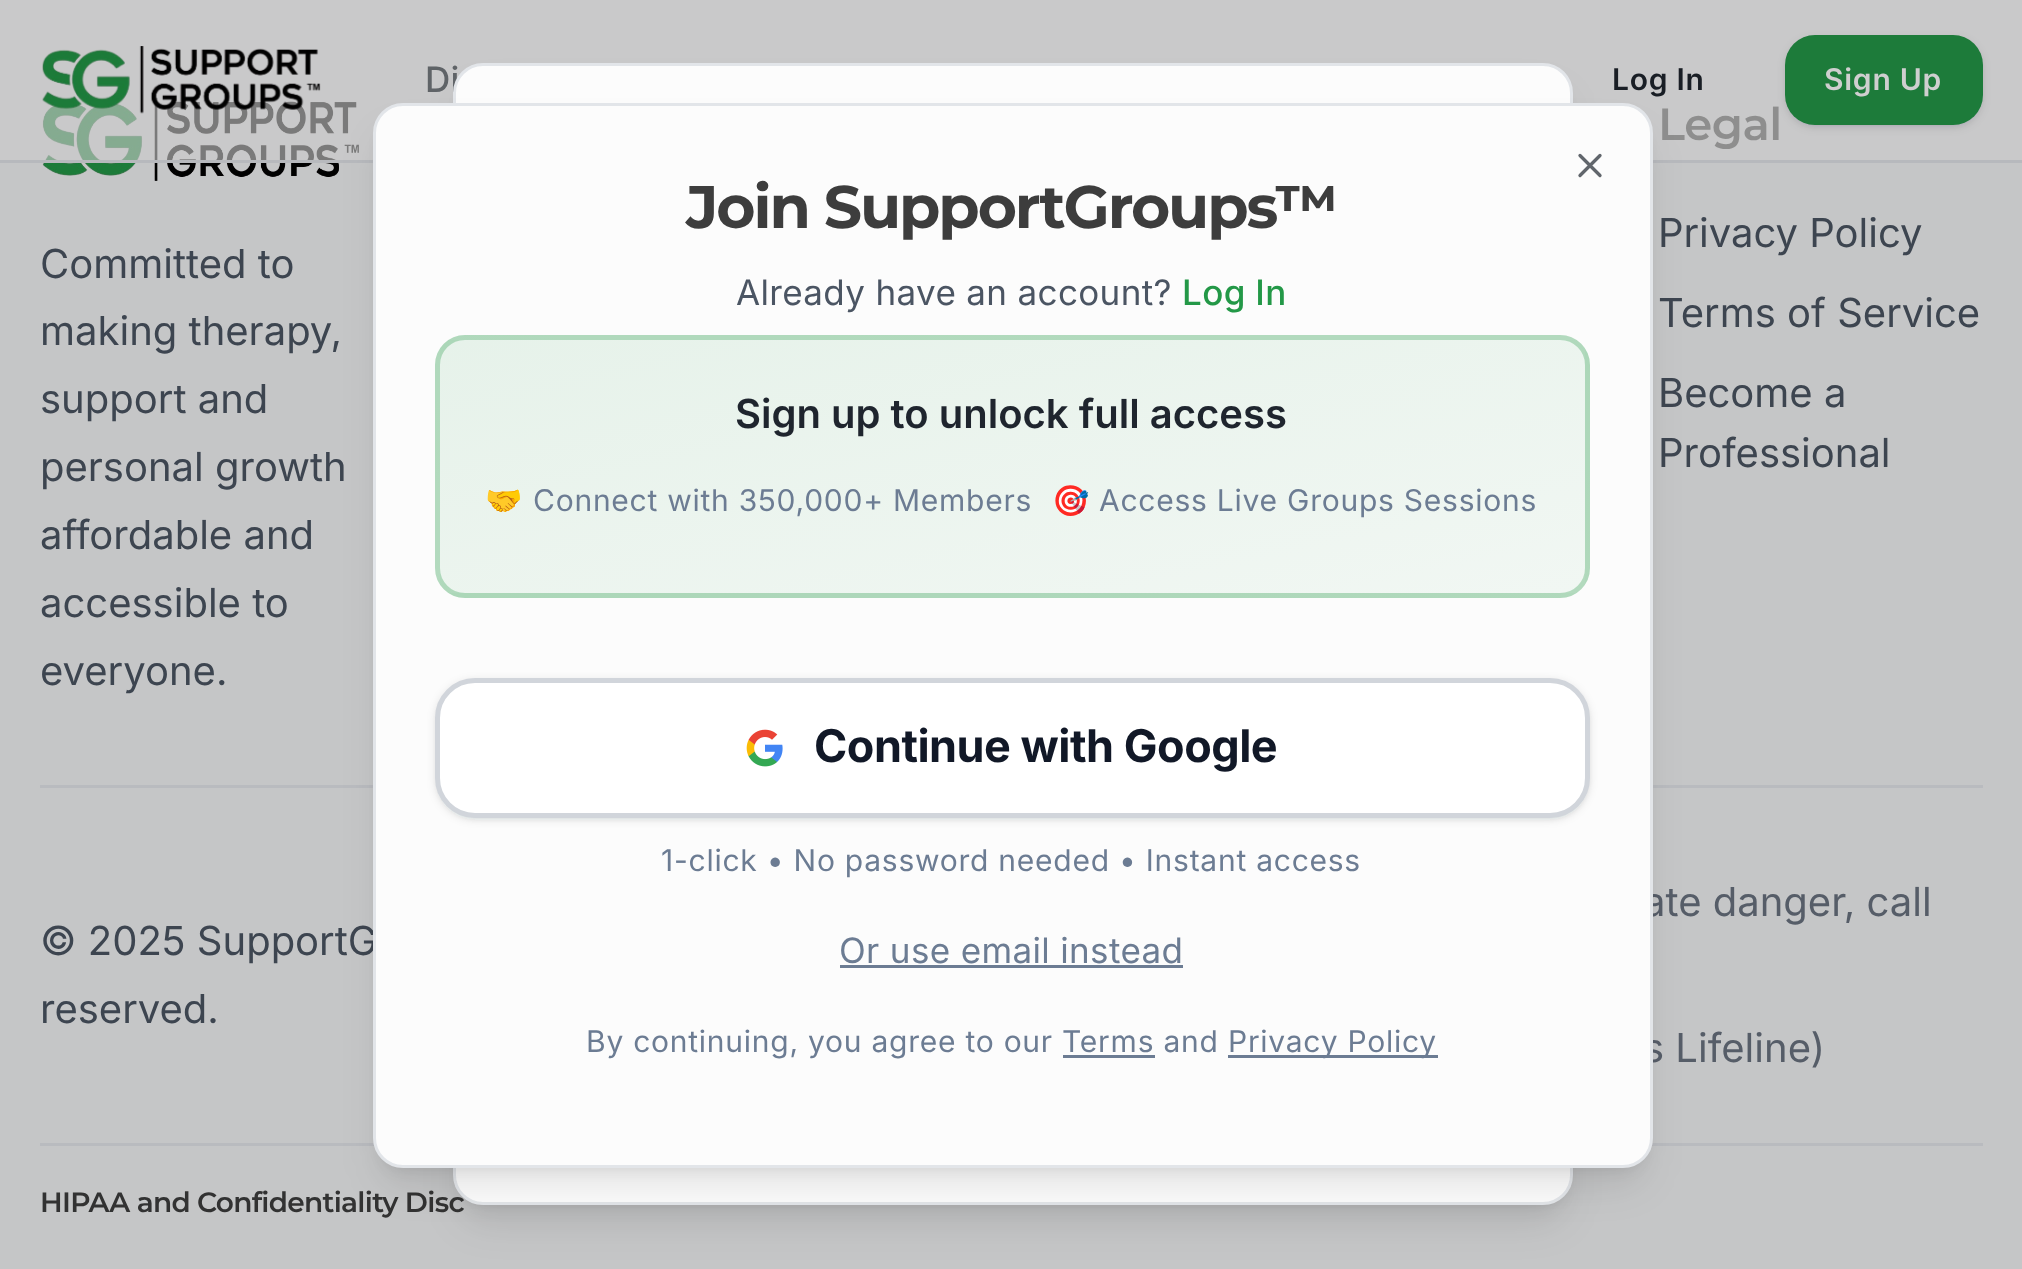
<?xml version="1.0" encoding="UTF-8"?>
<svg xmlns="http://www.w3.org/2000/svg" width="2022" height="1269">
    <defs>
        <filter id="blur1" x="-50%" y="-200%" width="200%" height="500%"><feGaussianBlur stdDeviation="7.5"/></filter>
        <filter id="blur2" x="-50%" y="-200%" width="200%" height="500%"><feGaussianBlur stdDeviation="19"/></filter>
        <filter id="blur3" x="-50%" y="-200%" width="200%" height="500%"><feGaussianBlur stdDeviation="2.5"/></filter>
        <filter id="blur4" x="-50%" y="-200%" width="200%" height="500%"><feGaussianBlur stdDeviation="4"/></filter>
        <clipPath id="clip1"><rect x="435" y="335" width="1155" height="263" rx="30"/></clipPath>
        <linearGradient id="g1" gradientUnits="userSpaceOnUse" x1="959" y1="-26" x2="1066" y2="455"><stop offset="0" stop-color="#E6F2EA"/><stop offset="1" stop-color="#F1F7F3"/></linearGradient>
        <linearGradient id="g2" gradientUnits="userSpaceOnUse" x1="-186" y1="226" x2="-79" y2="708"><stop offset="0" stop-color="#239847" stop-opacity="0.1"/><stop offset="1" stop-color="#239847" stop-opacity="0.05"/></linearGradient>
        <linearGradient id="g3" gradientUnits="userSpaceOnUse" x1="959" y1="226" x2="1066" y2="708"><stop offset="0" stop-color="#239847" stop-opacity="0.1"/><stop offset="1" stop-color="#239847" stop-opacity="0.05"/></linearGradient>
        <linearGradient id="g4" gradientUnits="userSpaceOnUse" x1="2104" y1="226" x2="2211" y2="708"><stop offset="0" stop-color="#239847" stop-opacity="0.1"/><stop offset="1" stop-color="#239847" stop-opacity="0.05"/></linearGradient>
        <linearGradient id="g5" gradientUnits="userSpaceOnUse" x1="959" y1="479" x2="1066" y2="960"><stop offset="0" stop-color="#239847" stop-opacity="0.1"/><stop offset="1" stop-color="#239847" stop-opacity="0.05"/></linearGradient>
    </defs>
    <rect width="100%" height="100%" fill="#C5C6C7"/>
    <image x="42" y="97" width="317" height="84" href="img_02.png"/>
    <text x="1658" y="140" font-family="Montserrat" font-size="45" font-weight="600" letter-spacing="-0.5" fill="#323232">Legal</text>
    <rect x="0" y="0" width="2022" height="160" fill="#CCCCCC" fill-opacity="0.6"/>
    <rect x="0" y="160" width="2022" height="3" fill="#B7B9BD"/>
    <rect x="40" y="785" width="1943" height="3" fill="#B9BBBF"/>
    <rect x="40" y="1143" width="1943" height="3" fill="#B9BBBF"/>
    <rect x="463" y="83" width="1100" height="1122" rx="20" fill="#000000" fill-opacity="0.1" filter="url(#blur1)"/>
    <rect x="460" y="95" width="1105" height="1128" rx="23" fill="#000000" fill-opacity="0.1" filter="url(#blur2)"/>
    <text x="425" y="92" font-family="Inter" font-size="35" font-weight="500" letter-spacing="0.35" fill="#5F6367">Di</text>
    <text x="40" y="1212" font-family="Montserrat" font-size="28" font-weight="600" letter-spacing="-0.7" fill="#323232">HIPAA and Confidentiality Disc</text>
    <rect x="454.5" y="64.5" width="1117" height="1139" rx="28.5" fill="#FCFCFC" stroke="#E2E5E9" stroke-width="3"/>
    <image x="42" y="46" width="279" height="68" href="img_01.png"/>
    <text x="1612" y="90" font-family="Inter" font-size="30" font-weight="600" letter-spacing="0.75" fill="#191E25">Log In</text>
    <rect x="1788" y="40" width="192" height="85" rx="28" fill="#1B1E24" fill-opacity="0.1" filter="url(#blur3)"/>
    <rect x="1785" y="38" width="198" height="90" rx="30" fill="#1B1E24" fill-opacity="0.1" filter="url(#blur4)"/>
    <rect x="1785" y="35" width="198" height="90" rx="30" fill="#1D7B3A"/>
    <text x="1824" y="90" font-family="Inter" font-size="30" font-weight="600" letter-spacing="0.75" fill="#CFCFCF">Sign Up</text>
    <text font-family="Inter" font-size="40" fill="#3D4550">
        <tspan x="40" y="278">Committed to</tspan>
        <tspan x="40" y="345">making therapy,</tspan>
        <tspan x="40" y="413">support and</tspan>
        <tspan x="40" y="481">personal growth</tspan>
        <tspan x="40" y="549">affordable and</tspan>
        <tspan x="40" y="617">accessible to</tspan>
        <tspan x="40" y="685">everyone.</tspan>
    </text>
    <text x="1658" y="247" font-family="Inter" font-size="40" fill="#3D4550">Privacy Policy</text>
    <text x="1658" y="327" font-family="Inter" font-size="40" fill="#3D4550">Terms of Service</text>
    <text font-family="Inter" font-size="40" fill="#3D4550">
        <tspan x="1658" y="407">Become a</tspan>
        <tspan x="1658" y="467">Professional</tspan>
    </text>
    <text font-family="Inter" font-size="40" fill="#3D4550">
        <tspan x="40" y="955">© 2025 SupportG</tspan>
        <tspan x="40" y="1023">reserved.</tspan>
    </text>
    <text x="1643" y="916" font-family="Inter" font-size="40" fill="#565D68">ate danger, call</text>
    <text x="1643" y="1062" font-family="Inter" font-size="40" fill="#565D68">s Lifeline)</text>
    <rect x="383" y="123" width="1260" height="1045" rx="20" fill="#000000" fill-opacity="0.1" filter="url(#blur1)"/>
    <rect x="380" y="135" width="1265" height="1050" rx="23" fill="#000000" fill-opacity="0.1" filter="url(#blur2)"/>
    <rect x="374.5" y="104.5" width="1277" height="1062" rx="28.5" fill="#FCFCFC" stroke="#E2E5E9" stroke-width="3"/>
    <path d="M 1600 155.5 L 1580 175.5 M 1580 155.5 L 1600 175.5" fill="none" stroke="#61666C" stroke-width="3.3" stroke-linecap="round" stroke-linejoin="round"/>
    <text x="686" y="228" font-family="Montserrat" font-size="60" font-weight="700" letter-spacing="-2.1" fill="#3D3D3D">Join SupportGroups™</text>
    <text x="736" y="305" font-family="Inter" font-size="35" letter-spacing="0.35" fill="#4B5563">Already have an account?</text>
    <text x="1182" y="305" font-family="Inter" font-size="35" font-weight="500" letter-spacing="0.35" fill="#239847">Log In</text>
    <g clip-path="url(#clip1)">
        <rect x="440" y="335" width="1145" height="5" fill="url(#g1)"/>
        <rect x="435" y="349" width="5" height="235" fill="url(#g2)"/>
        <rect x="440" y="340" width="1145" height="253" fill="url(#g3)"/>
        <rect x="1585" y="349" width="5" height="235" fill="url(#g4)"/>
        <rect x="449" y="593" width="1127" height="5" fill="url(#g5)"/>
    </g>
    <rect x="437.5" y="337.5" width="1150" height="258" rx="27.5" fill="none" stroke="#239847" stroke-opacity="0.3" stroke-width="5"/>
    <text x="735" y="428" font-family="Inter" font-size="40" font-weight="600" fill="#1F252E">Sign up to unlock full access</text>
    <text x="485" y="511" font-family="Noto Color Emoji" font-size="30" letter-spacing="0.75" fill="#6C7C93">🤝</text>
    <text x="533" y="511" font-family="Inter" font-size="30" letter-spacing="0.75" fill="#6C7C93">Connect with 350,000+ Members</text>
    <text x="1052" y="511" font-family="Noto Color Emoji" font-size="30" letter-spacing="0.75" fill="#6C7C93">🎯</text>
    <text x="1099" y="511" font-family="Inter" font-size="30" letter-spacing="0.75" fill="#6C7C93">Access Live Groups Sessions</text>
    <rect x="438" y="683" width="1150" height="135" rx="38" fill="#21252C" fill-opacity="0.1" filter="url(#blur3)"/>
    <rect x="435" y="680" width="1155" height="140" rx="40" fill="#21252C" fill-opacity="0.1" filter="url(#blur4)"/>
    <rect x="437.5" y="680.5" width="1150" height="135" rx="37.5" fill="#FFFFFF" stroke="#D1D5DB" stroke-width="5"/>
    <image x="746" y="729" width="37" height="38" href="img_03.png"/>
    <text x="814" y="762" font-family="Inter" font-size="45" font-weight="700" letter-spacing="-0.5" fill="#111827">Continue with Google</text>
    <text x="661" y="871" font-family="Inter" font-size="30" letter-spacing="0.75" fill="#6C7C93">1-click • No password needed • Instant access</text>
    <text x="839" y="963" font-family="Inter" font-size="35" letter-spacing="0.35" fill="#6C7C93">Or use email instead</text>
    <rect x="840" y="965" width="343" height="3" fill="#6C7C93"/>
    <text x="586" y="1052" font-family="Inter" font-size="30" letter-spacing="0.75" fill="#6C7C93">By continuing, you agree to our Terms and</text>
    <rect x="1228" y="1055" width="210" height="3" fill="#6C7C93"/>
    <text x="1228" y="1052" font-family="Inter" font-size="30" letter-spacing="0.75" fill="#6C7C93">Privacy Policy</text>
    <rect x="1063" y="1055" width="92" height="3" fill="#6C7C93"/>
</svg>
